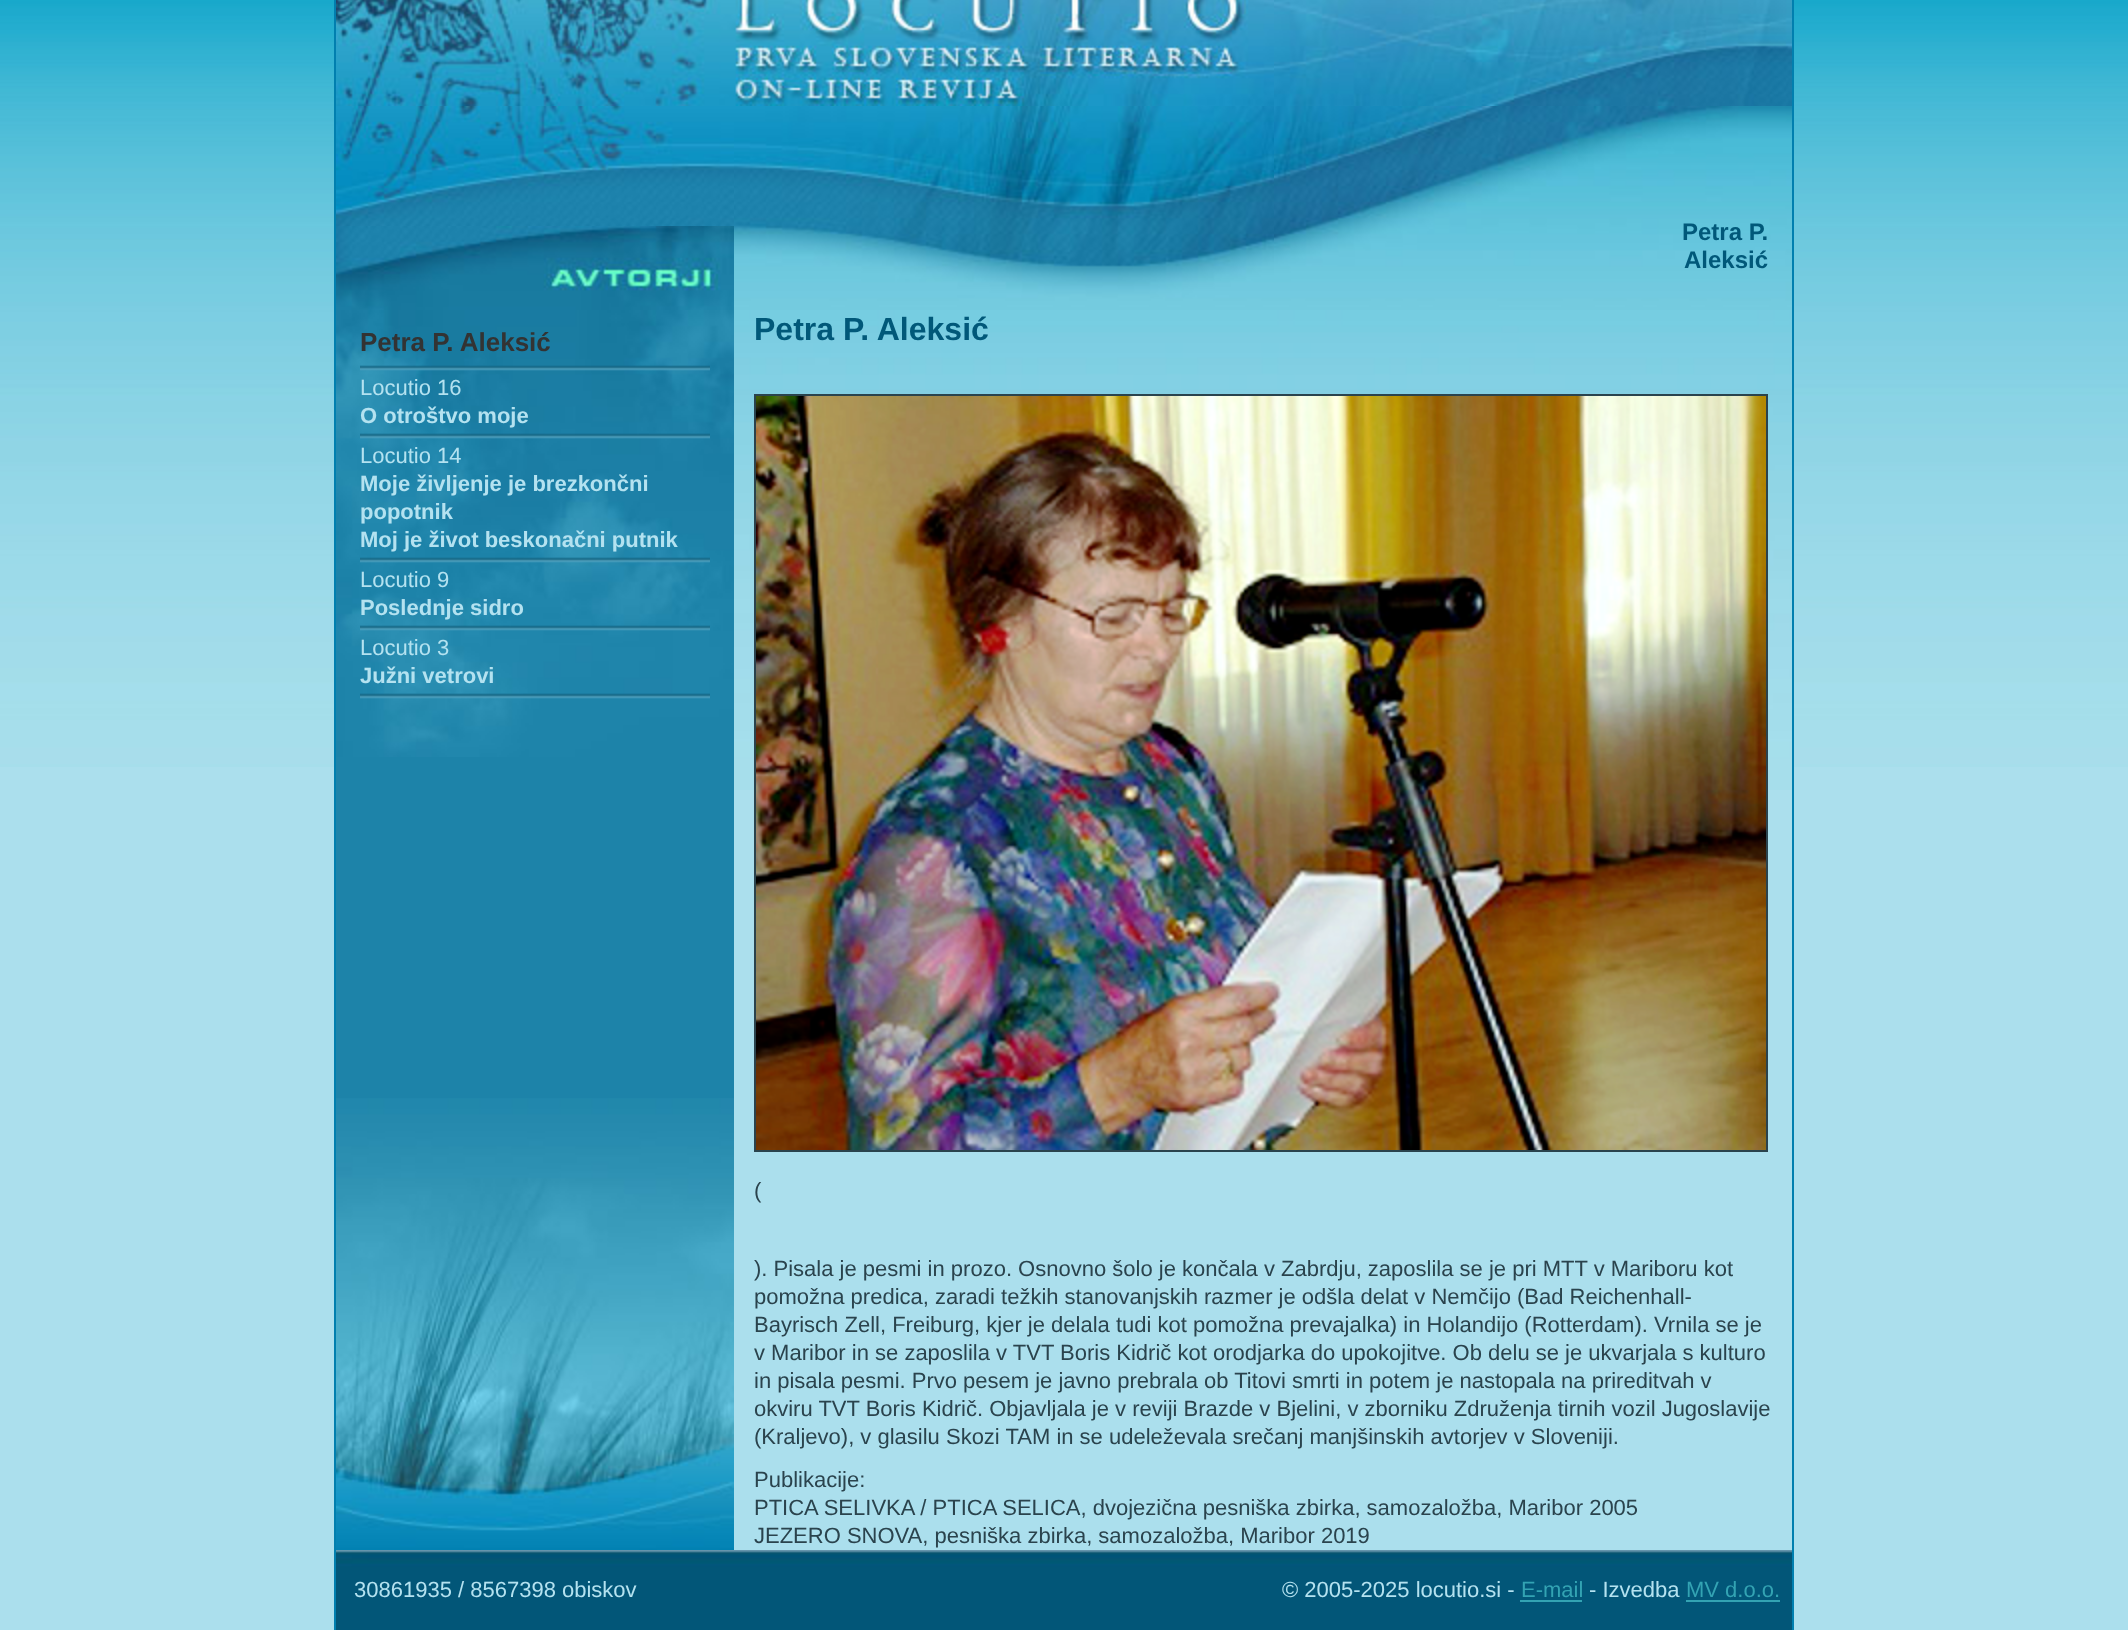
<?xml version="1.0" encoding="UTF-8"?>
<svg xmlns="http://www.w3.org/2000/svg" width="2128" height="1630">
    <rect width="100%" height="100%" fill="#ABDFED"/>
    <image x="0" y="0" width="2128" height="767" href="img_01.png"/>
    <rect x="334" y="0" width="2" height="1630" fill="#017FAF"/>
    <image x="336" y="0" width="938" height="106" href="img_02.png"/>
    <image x="1274" y="0" width="518" height="106" href="img_03.png"/>
    <image x="336" y="226" width="398" height="84" href="img_04.png"/>
    <image x="336" y="106" width="398" height="120" href="img_05.png"/>
    <image x="734" y="106" width="540" height="204" href="img_06.png"/>
    <image x="1274" y="106" width="518" height="204" href="img_07.png"/>
    <text x="1682" y="240" font-family="Liberation Sans" font-size="24" font-weight="700" fill="#015879">Petra P.</text>
    <text x="1684" y="268" font-family="Liberation Sans" font-size="24" font-weight="700" fill="#015879">Aleksić</text>
    <rect x="336" y="757" width="398" height="341" fill="#1D83A9"/>
    <image x="336" y="310" width="398" height="447" href="img_08.png"/>
    <text x="360" y="351" font-family="Liberation Sans" font-size="26" font-weight="700" fill="#333333">Petra P. Aleksić</text>
    <image x="360" y="365" width="350" height="6" href="img_09.png"/>
    <text x="360" y="395" font-family="Liberation Sans" font-size="22" fill="#B4E2F0">Locutio 16</text>
    <text x="360" y="423" font-family="Liberation Sans" font-size="22" font-weight="700" fill="#B4E2F0">O otroštvo moje</text>
    <image x="360" y="433" width="350" height="6" href="img_10.png"/>
    <text x="360" y="463" font-family="Liberation Sans" font-size="22" fill="#B4E2F0">Locutio 14</text>
    <text font-family="Liberation Sans" font-size="22" font-weight="700" fill="#B4E2F0">
        <tspan x="360" y="491">Moje življenje je brezkončni</tspan>
        <tspan x="360" y="519">popotnik</tspan>
        <tspan x="360" y="547">Moj je život beskonačni putnik</tspan>
    </text>
    <image x="360" y="557" width="350" height="6" href="img_11.png"/>
    <text x="360" y="587" font-family="Liberation Sans" font-size="22" fill="#B4E2F0">Locutio 9</text>
    <text x="360" y="615" font-family="Liberation Sans" font-size="22" font-weight="700" fill="#B4E2F0">Poslednje sidro</text>
    <image x="360" y="625" width="350" height="6" href="img_12.png"/>
    <text x="360" y="655" font-family="Liberation Sans" font-size="22" fill="#B4E2F0">Locutio 3</text>
    <text x="360" y="683" font-family="Liberation Sans" font-size="22" font-weight="700" fill="#B4E2F0">Južni vetrovi</text>
    <image x="360" y="693" width="350" height="6" href="img_13.png"/>
    <image x="336" y="1098" width="398" height="452" href="img_14.png"/>
    <image x="734" y="310" width="1058" height="480" href="img_15.png"/>
    <text x="754" y="340" font-family="Liberation Sans" font-size="32" font-weight="700" fill="#015879">Petra P. Aleksić</text>
    <rect x="755" y="395" width="1012" height="756" fill="none" stroke="#2A434D" stroke-width="2"/>
    <image x="756" y="396" width="1010" height="754" href="img_16.png"/>
    <text x="754" y="1198" font-family="Liberation Sans" font-size="22" fill="#2A434D">(</text>
    <text font-family="Liberation Sans" font-size="22" fill="#2A434D">
        <tspan x="754" y="1276">). Pisala je pesmi in prozo. Osnovno šolo je končala v Zabrdju, zaposlila se je pri MTT v Mariboru kot</tspan>
        <tspan x="754" y="1304">pomožna predica, zaradi težkih stanovanjskih razmer je odšla delat v Nemčijo (Bad Reichenhall-</tspan>
        <tspan x="754" y="1332">Bayrisch Zell, Freiburg, kjer je delala tudi kot pomožna prevajalka) in Holandijo (Rotterdam). Vrnila se je</tspan>
        <tspan x="754" y="1360">v Maribor in se zaposlila v TVT Boris Kidrič kot orodjarka do upokojitve. Ob delu se je ukvarjala s kulturo</tspan>
        <tspan x="754" y="1388">in pisala pesmi. Prvo pesem je javno prebrala ob Titovi smrti in potem je nastopala na prireditvah v</tspan>
        <tspan x="754" y="1416">okviru TVT Boris Kidrič. Objavljala je v reviji Brazde v Bjelini, v zborniku Združenja tirnih vozil Jugoslavije</tspan>
        <tspan x="754" y="1444">(Kraljevo), v glasilu Skozi TAM in se udeleževala srečanj manjšinskih avtorjev v Sloveniji.</tspan>
        <tspan x="754" y="1487">Publikacije:</tspan>
        <tspan x="754" y="1515">PTICA SELIVKA / PTICA SELICA, dvojezična pesniška zbirka, samozaložba, Maribor 2005</tspan>
        <tspan x="754" y="1543">JEZERO SNOVA, pesniška zbirka, samozaložba, Maribor 2019</tspan>
    </text>
    <image x="336" y="1550" width="1456" height="80" href="img_17.png"/>
    <text x="354" y="1597" font-family="Liberation Sans" font-size="22" fill="#B4E2F0">30861935 / 8567398 obiskov</text>
    <text x="1282" y="1597" font-family="Liberation Sans" font-size="22" fill="#B4E2F0">© 2005-2025 locutio.si -</text>
    <text x="1521" y="1597" font-family="Liberation Sans" font-size="22" fill="#33A3B3">E-mail</text>
    <rect x="1520" y="1600" width="62" height="2" fill="#33A3B3"/>
    <text x="1589" y="1597" font-family="Liberation Sans" font-size="22" fill="#B4E2F0">- Izvedba</text>
    <text x="1686" y="1597" font-family="Liberation Sans" font-size="22" fill="#33A3B3">MV d.o.o.</text>
    <rect x="1686" y="1600" width="94" height="2" fill="#33A3B3"/>
    <rect x="1792" y="0" width="2" height="1630" fill="#017FAF"/>
</svg>
